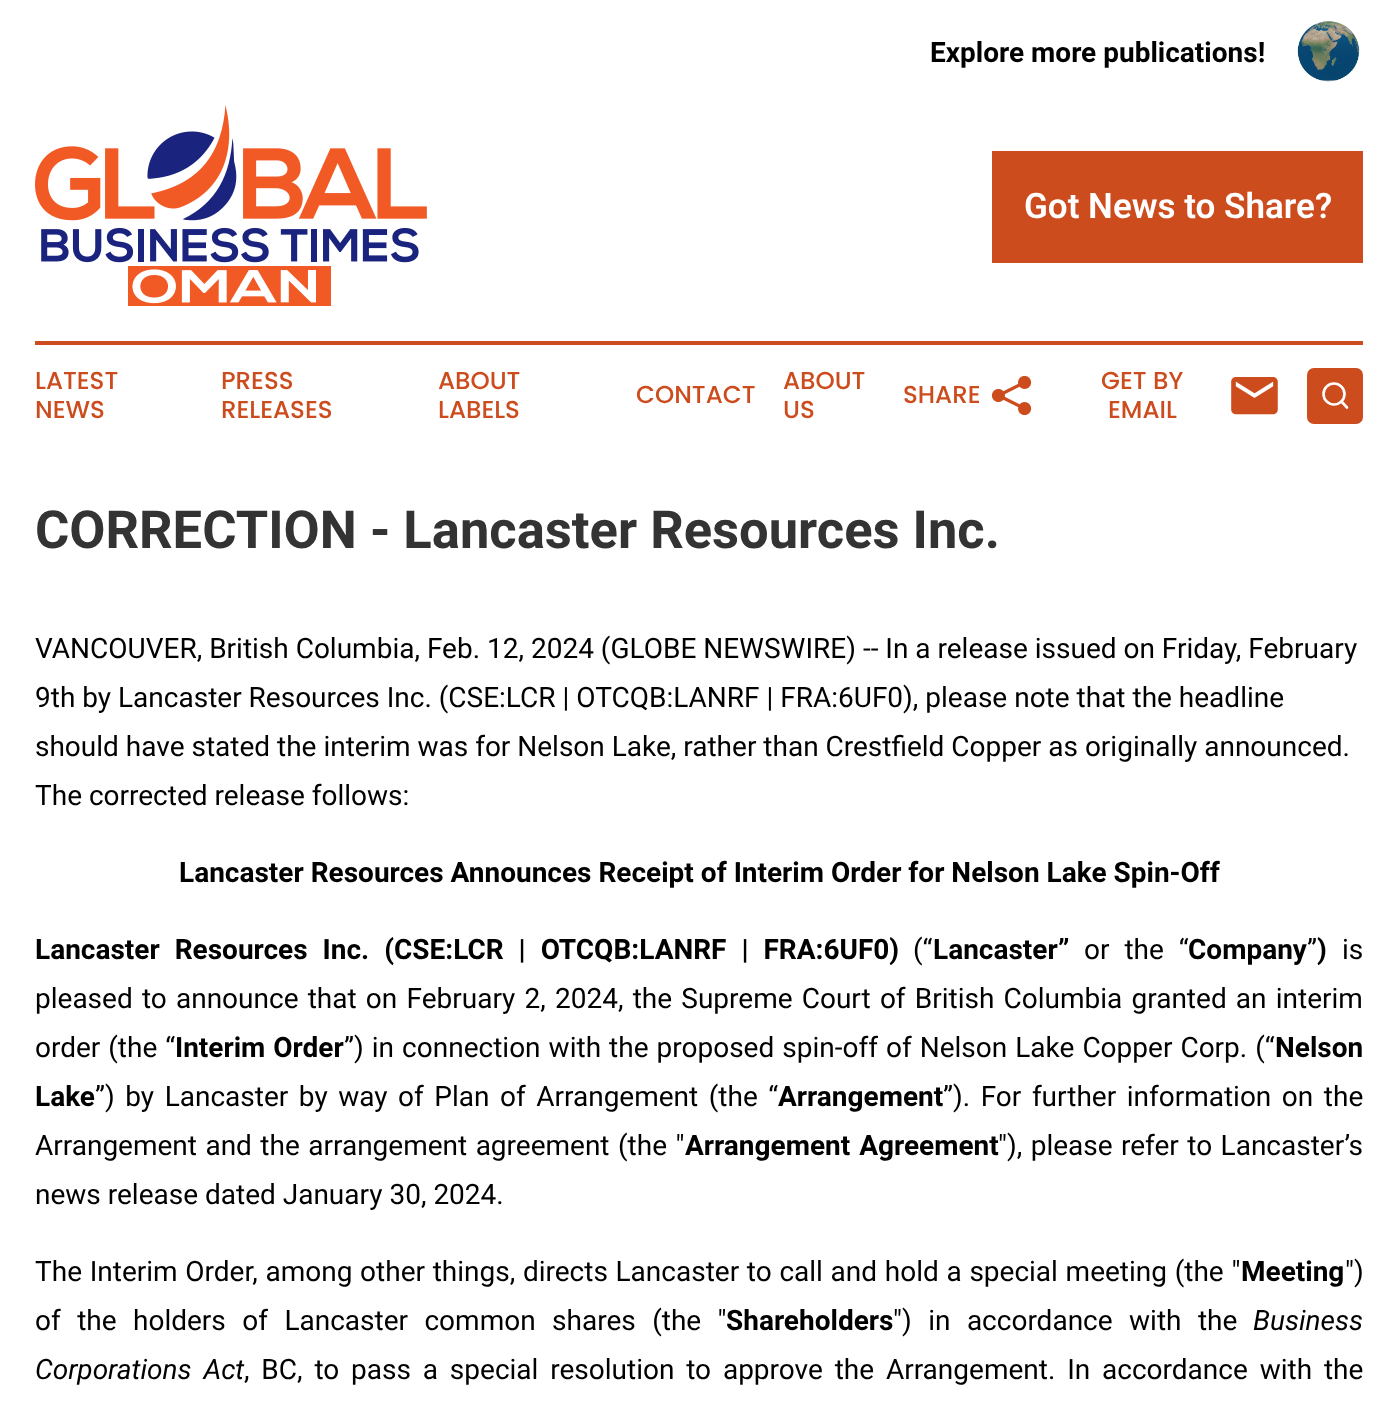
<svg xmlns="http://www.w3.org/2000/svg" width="1398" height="1404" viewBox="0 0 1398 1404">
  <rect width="100%" height="100%" fill="#ffffff"/>
  <text x="930" y="62" font-family="Roboto" font-size="28" font-weight="bold" fill="#000000">Explore more publications!</text>
  <image x="1297" y="21" width="63" height="61" href="img1.png"/>
  <image x="35" y="105" width="392" height="201" href="img2.png"/>
  <rect x="992" y="151" width="371" height="112" fill="#cc4c1e"/>
  <text x="1024" y="218" font-family="Roboto" font-size="35" font-weight="600" fill="#ffffff">Got News to Share?</text>
  <rect x="35" y="341" width="1328" height="4" fill="#cc4c1e"/>
  <text x="35" y="389" font-family="Poppins" font-size="24.5" font-weight="500" fill="#cc4c1e">LATEST</text>
  <text x="35" y="418" font-family="Poppins" font-size="24.5" font-weight="500" fill="#cc4c1e">NEWS</text>
  <text x="221" y="389" font-family="Poppins" font-size="24.5" font-weight="500" fill="#cc4c1e">PRESS</text>
  <text x="221" y="418" font-family="Poppins" font-size="24.5" font-weight="500" fill="#cc4c1e">RELEASES</text>
  <text x="438" y="389" font-family="Poppins" font-size="24.5" font-weight="500" fill="#cc4c1e">ABOUT</text>
  <text x="438" y="418" font-family="Poppins" font-size="24.5" font-weight="500" fill="#cc4c1e">LABELS</text>
  <text x="636" y="403" font-family="Poppins" font-size="24.5" font-weight="500" fill="#cc4c1e">CONTACT</text>
  <text x="783" y="389" font-family="Poppins" font-size="24.5" font-weight="500" fill="#cc4c1e">ABOUT</text>
  <text x="783" y="418" font-family="Poppins" font-size="24.5" font-weight="500" fill="#cc4c1e">US</text>
  <text x="903" y="403" font-family="Poppins" font-size="24.5" font-weight="500" fill="#cc4c1e">SHARE</text>
  <image x="991" y="375" width="41" height="41" href="img3.png"/>
  <text x="1101" y="389" font-family="Poppins" font-size="24.5" font-weight="500" fill="#cc4c1e">GET BY</text>
  <text x="1108" y="418" font-family="Poppins" font-size="24.5" font-weight="500" fill="#cc4c1e">EMAIL</text>
  <image x="1231" y="377" width="47" height="38" href="img4.png"/>
  <rect x="1307" y="368" width="56" height="56" rx="7" fill="#cc4c1e"/>
  <circle cx="1334" cy="394" r="10.5" fill="none" stroke="#ffffff" stroke-width="2.6"/>
  <path d="M1347 407.5L1341.5 401.5" fill="none" stroke="#ffffff" stroke-width="2.6" stroke-linecap="round" stroke-linejoin="round"/>
  <text x="35" y="548" font-family="Roboto" font-size="52.5" font-weight="bold" fill="#333333">CORRECTION - Lancaster Resources Inc.</text>
  <text x="35" y="658" font-family="Roboto" font-size="28" fill="#000000">VANCOUVER, British Columbia, Feb.</text>
  <text x="487" y="658" font-family="Roboto" font-size="28" fill="#000000">12, 2024 (GLOBE NEWSWIRE) -- In a release issued on Friday, February</text>
  <text x="35" y="707" font-family="Roboto" font-size="28" fill="#000000">9th by Lancaster Resources Inc. (CSE:LCR | OTCQB:LANRF | FRA:6UF0), please note that the headline</text>
  <text x="35" y="756" font-family="Roboto" font-size="28" fill="#000000">should have stated the interim was for Nelson Lake, rather than Crestfield Copper as originally announced.</text>
  <text x="35" y="805" font-family="Roboto" font-size="28" fill="#000000">The corrected release follows:</text>
  <text x="179" y="882" font-family="Roboto" font-size="28" font-weight="bold" fill="#000000">Lancaster Resources Announces Receipt of Interim Order for Nelson Lake Spin-Off</text>
  <text x="35" y="959" word-spacing="8" font-family="Roboto" font-size="28" font-weight="bold" fill="#000000">Lancaster Resources Inc. (CSE:LCR | OTCQB:LANRF | FRA:6UF0)</text>
  <text x="913" y="959" font-family="Roboto" font-size="28" fill="#000000">(“</text>
  <text x="933" y="959" font-family="Roboto" font-size="28" font-weight="bold" fill="#000000">Lancaster”</text>
  <text x="1084" y="959" word-spacing="8" font-family="Roboto" font-size="28" fill="#000000">or the “</text>
  <text x="1188" y="959" font-family="Roboto" font-size="28" font-weight="bold" fill="#000000">Company</text>
  <text x="1307" y="959" font-family="Roboto" font-size="28" fill="#000000">”</text>
  <text x="1317" y="959" font-family="Roboto" font-size="28" font-weight="bold" fill="#000000">)</text>
  <text x="1342" y="959" font-family="Roboto" font-size="28" fill="#000000">is</text>
  <text x="35" y="1008" word-spacing="2.25" font-family="Roboto" font-size="28" fill="#000000">pleased to announce that on February 2, 2024, the Supreme Court of British Columbia granted an interim</text>
  <text x="35" y="1057" word-spacing="1" font-family="Roboto" font-size="28" fill="#000000">order (the “</text>
  <text x="175" y="1057" word-spacing="1" font-family="Roboto" font-size="28" font-weight="bold" fill="#000000">Interim Order</text>
  <text x="344" y="1057" word-spacing="1.1" font-family="Roboto" font-size="28" fill="#000000">”) in connection with the proposed spin-off of Nelson Lake Copper Corp. (“</text>
  <text x="1275" y="1057" font-family="Roboto" font-size="28" font-weight="bold" fill="#000000">Nelson</text>
  <text x="35" y="1106" font-family="Roboto" font-size="28" font-weight="bold" fill="#000000">Lake</text>
  <text x="95" y="1106" word-spacing="3.6" font-family="Roboto" font-size="28" fill="#000000">”) by Lancaster by way of Plan of Arrangement (the “</text>
  <text x="778" y="1106" font-family="Roboto" font-size="28" font-weight="bold" fill="#000000">Arrangement</text>
  <text x="943" y="1106" word-spacing="3.6" font-family="Roboto" font-size="28" fill="#000000">”). For further information on the</text>
  <text x="35" y="1155" word-spacing="1.5" font-family="Roboto" font-size="28" fill="#000000">Arrangement and the arrangement agreement (the "</text>
  <text x="685" y="1155" word-spacing="2" font-family="Roboto" font-size="28" font-weight="bold" fill="#000000">Arrangement Agreement</text>
  <text x="998" y="1155" word-spacing="1.5" font-family="Roboto" font-size="28" fill="#000000">"), please refer to Lancaster’s</text>
  <text x="35" y="1204" font-family="Roboto" font-size="28" fill="#000000">news release dated January 30, 2024.</text>
  <text x="35" y="1281" word-spacing="0.75" font-family="Roboto" font-size="28" fill="#000000">The Interim Order, among other things, directs Lancaster to call and hold a special meeting (the "</text>
  <text x="1241" y="1281" font-family="Roboto" font-size="28" font-weight="bold" fill="#000000">Meeting</text>
  <text x="1345" y="1281" font-family="Roboto" font-size="28" fill="#000000">")</text>
  <text x="35" y="1330" word-spacing="9.5" font-family="Roboto" font-size="28" fill="#000000">of the holders of Lancaster common shares (the "</text>
  <text x="726" y="1330" font-family="Roboto" font-size="28" font-weight="bold" fill="#000000">Shareholders</text>
  <text x="893" y="1330" word-spacing="9.5" font-family="Roboto" font-size="28" fill="#000000">") in accordance with the</text>
  <text x="1253" y="1330" font-family="Roboto" font-size="28" font-style="italic" fill="#000000">Business</text>
  <text x="35" y="1379" word-spacing="5" font-family="Roboto" font-size="28" font-style="italic" fill="#000000">Corporations Act</text>
  <text x="244" y="1379" word-spacing="4.9" font-family="Roboto" font-size="28" fill="#000000">, BC, to pass a special resolution to approve the Arrangement. In accordance with the</text>
</svg>
